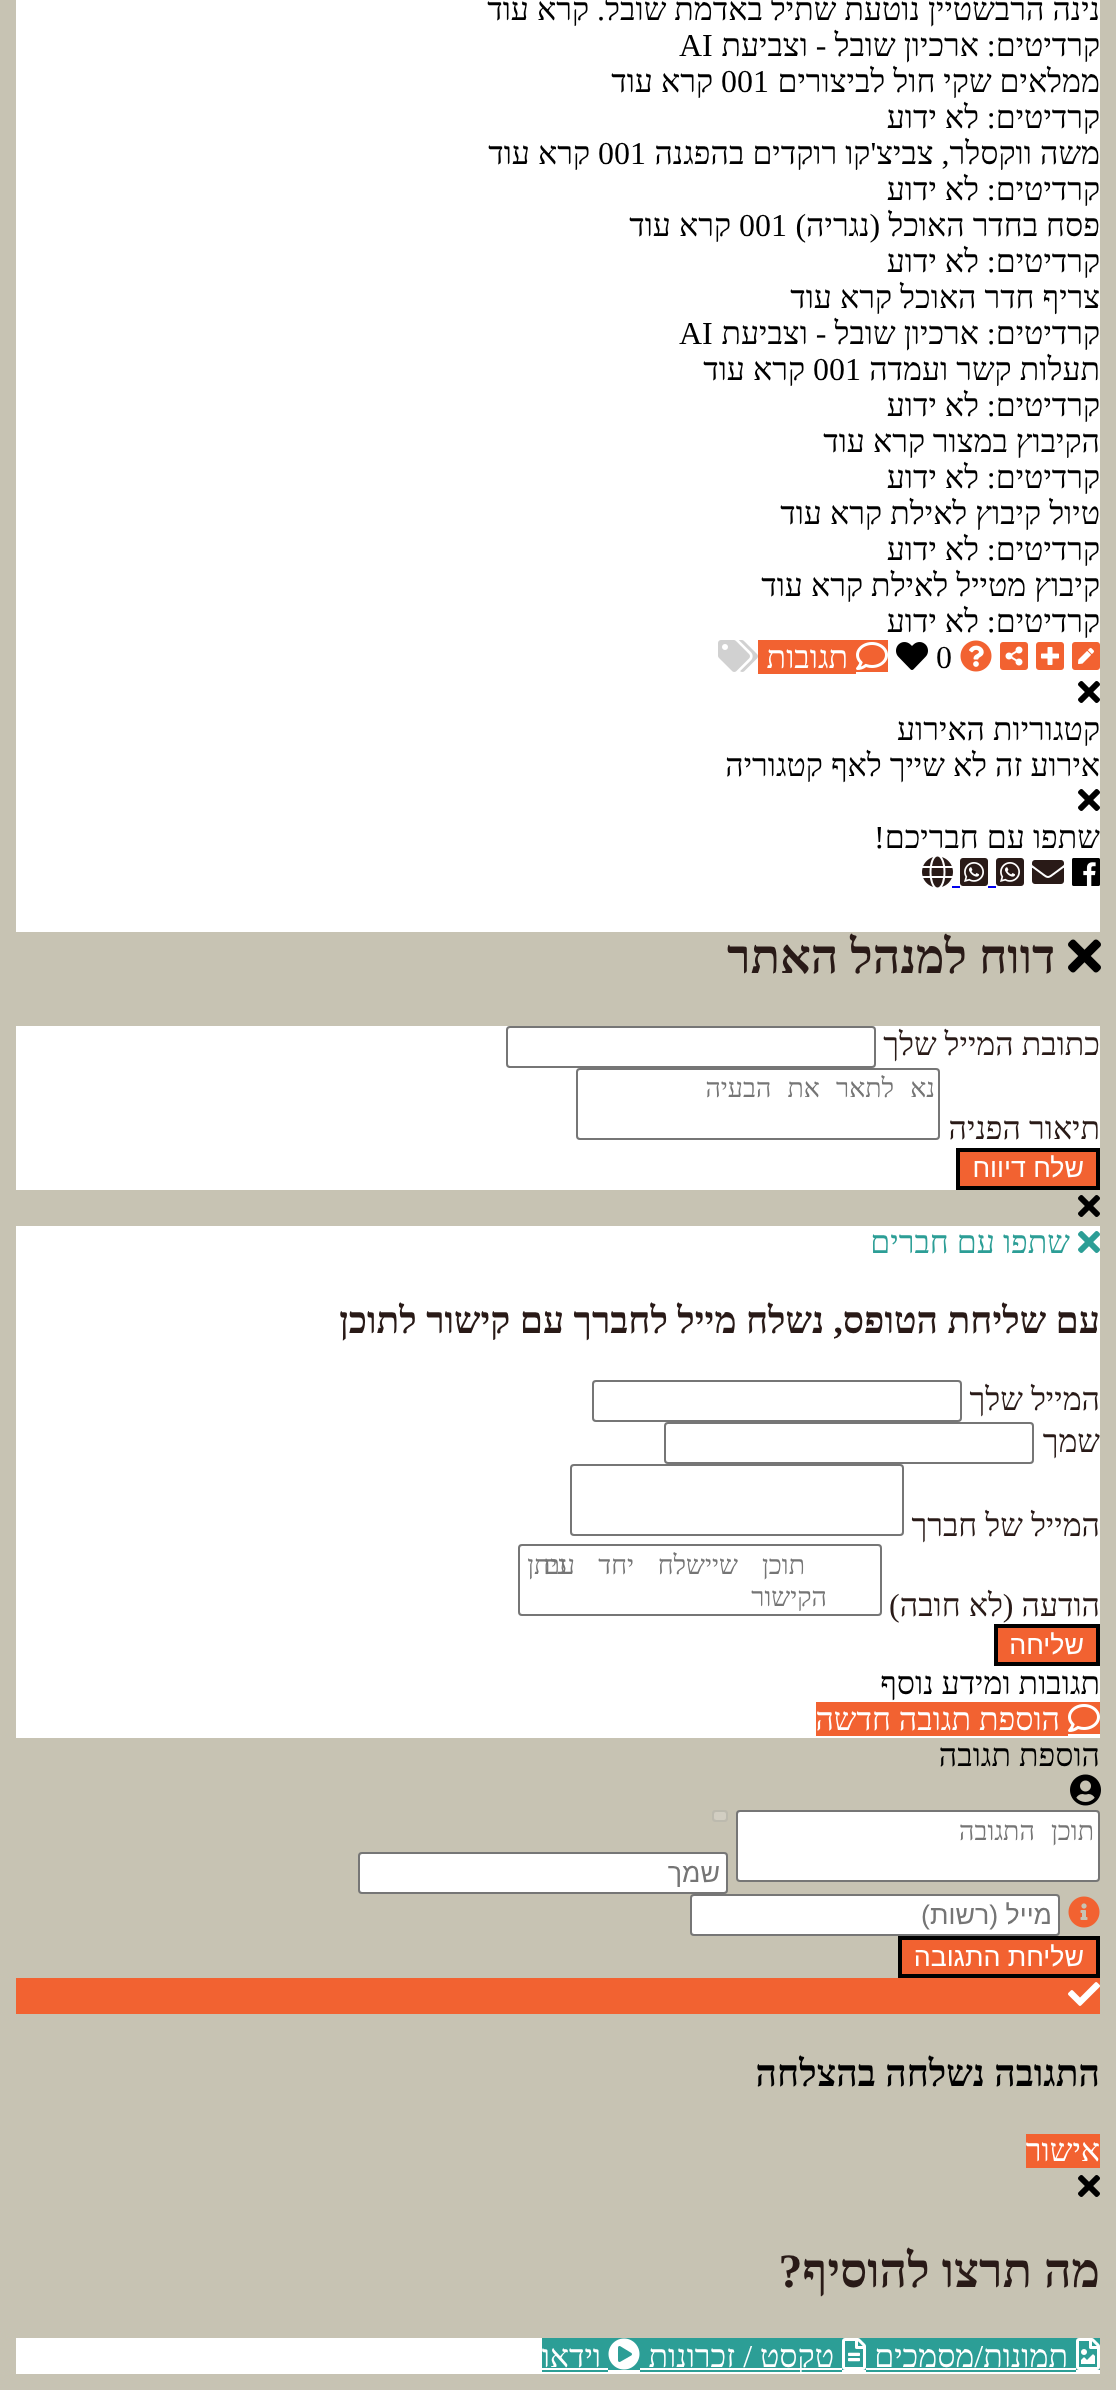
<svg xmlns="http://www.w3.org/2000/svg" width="1116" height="2390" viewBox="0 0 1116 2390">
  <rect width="100%" height="100%" fill="#c7c3b3"/>
  <rect x="16" y="0" width="1084" height="932" fill="#ffffff"/>
  <text x="1100" y="20" font-family="Liberation Serif" font-size="32" direction="rtl" fill="#000000">נינה הרבשטיין נוטעת שתיל באדמת שובל.</text>
  <text x="589" y="20" font-family="Liberation Serif" font-size="32" direction="rtl" fill="#000000">קרא עוד</text>
  <text x="1100" y="56" font-family="Liberation Serif" font-size="32" direction="rtl" fill="#000000">קרדיטים:</text>
  <text x="979" y="56" font-family="Liberation Serif" font-size="32" direction="rtl" fill="#000000">ארכיון שובל - וצביעת</text>
  <text x="679" y="56" font-family="Liberation Serif" font-size="32" fill="#000000">AI</text>
  <text x="1100" y="92" font-family="Liberation Serif" font-size="32" direction="rtl" fill="#000000">ממלאים שקי חול לביצורים</text>
  <text x="721" y="92" font-family="Liberation Serif" font-size="32" fill="#000000">001</text>
  <text x="713" y="92" font-family="Liberation Serif" font-size="32" direction="rtl" fill="#000000">קרא עוד</text>
  <text x="1100" y="128" font-family="Liberation Serif" font-size="32" direction="rtl" fill="#000000">קרדיטים:</text>
  <text x="979" y="128" font-family="Liberation Serif" font-size="32" direction="rtl" fill="#000000">לא ידוע</text>
  <text x="1100" y="164" font-family="Liberation Serif" font-size="32" direction="rtl" fill="#000000">משה ווקסלר, צביצ'קו רוקדים בהפגנה</text>
  <text x="598" y="164" font-family="Liberation Serif" font-size="32" fill="#000000">001</text>
  <text x="590" y="164" font-family="Liberation Serif" font-size="32" direction="rtl" fill="#000000">קרא עוד</text>
  <text x="1100" y="200" font-family="Liberation Serif" font-size="32" direction="rtl" fill="#000000">קרדיטים:</text>
  <text x="979" y="200" font-family="Liberation Serif" font-size="32" direction="rtl" fill="#000000">לא ידוע</text>
  <text x="1100" y="236" font-family="Liberation Serif" font-size="32" direction="rtl" fill="#000000">פסח בחדר האוכל (נגריה)</text>
  <text x="739" y="236" font-family="Liberation Serif" font-size="32" fill="#000000">001</text>
  <text x="731" y="236" font-family="Liberation Serif" font-size="32" direction="rtl" fill="#000000">קרא עוד</text>
  <text x="1100" y="272" font-family="Liberation Serif" font-size="32" direction="rtl" fill="#000000">קרדיטים:</text>
  <text x="979" y="272" font-family="Liberation Serif" font-size="32" direction="rtl" fill="#000000">לא ידוע</text>
  <text x="1100" y="308" font-family="Liberation Serif" font-size="32" direction="rtl" fill="#000000">צריף חדר האוכל</text>
  <text x="892" y="308" font-family="Liberation Serif" font-size="32" direction="rtl" fill="#000000">קרא עוד</text>
  <text x="1100" y="344" font-family="Liberation Serif" font-size="32" direction="rtl" fill="#000000">קרדיטים:</text>
  <text x="979" y="344" font-family="Liberation Serif" font-size="32" direction="rtl" fill="#000000">ארכיון שובל - וצביעת</text>
  <text x="679" y="344" font-family="Liberation Serif" font-size="32" fill="#000000">AI</text>
  <text x="1100" y="380" font-family="Liberation Serif" font-size="32" direction="rtl" fill="#000000">תעלות קשר ועמדה</text>
  <text x="813" y="380" font-family="Liberation Serif" font-size="32" fill="#000000">001</text>
  <text x="805" y="380" font-family="Liberation Serif" font-size="32" direction="rtl" fill="#000000">קרא עוד</text>
  <text x="1100" y="416" font-family="Liberation Serif" font-size="32" direction="rtl" fill="#000000">קרדיטים:</text>
  <text x="979" y="416" font-family="Liberation Serif" font-size="32" direction="rtl" fill="#000000">לא ידוע</text>
  <text x="1100" y="452" font-family="Liberation Serif" font-size="32" direction="rtl" fill="#000000">הקיבוץ במצור</text>
  <text x="925" y="452" font-family="Liberation Serif" font-size="32" direction="rtl" fill="#000000">קרא עוד</text>
  <text x="1100" y="488" font-family="Liberation Serif" font-size="32" direction="rtl" fill="#000000">קרדיטים:</text>
  <text x="979" y="488" font-family="Liberation Serif" font-size="32" direction="rtl" fill="#000000">לא ידוע</text>
  <text x="1100" y="524" font-family="Liberation Serif" font-size="32" direction="rtl" fill="#000000">טיול קיבוץ לאילת</text>
  <text x="882" y="524" font-family="Liberation Serif" font-size="32" direction="rtl" fill="#000000">קרא עוד</text>
  <text x="1100" y="560" font-family="Liberation Serif" font-size="32" direction="rtl" fill="#000000">קרדיטים:</text>
  <text x="979" y="560" font-family="Liberation Serif" font-size="32" direction="rtl" fill="#000000">לא ידוע</text>
  <text x="1100" y="596" font-family="Liberation Serif" font-size="32" direction="rtl" fill="#000000">קיבוץ מטייל לאילת</text>
  <text x="863" y="596" font-family="Liberation Serif" font-size="32" direction="rtl" fill="#000000">קרא עוד</text>
  <text x="1100" y="632" font-family="Liberation Serif" font-size="32" direction="rtl" fill="#000000">קרדיטים:</text>
  <text x="979" y="632" font-family="Liberation Serif" font-size="32" direction="rtl" fill="#000000">לא ידוע</text>
  <image x="1072" y="642" width="28" height="28" href="img1.png"/>
  <image x="1036" y="642" width="28" height="28" href="img2.png"/>
  <image x="1000" y="642" width="28" height="28" href="img3.png"/>
  <image x="960" y="640" width="32" height="32" href="img4.png"/>
  <text x="936" y="668" font-family="Liberation Serif" font-size="32" fill="#000000">0</text>
  <image x="896" y="642" width="32" height="28" href="img5.png"/>
  <rect x="856" y="640" width="32" height="32" fill="#f26231"/>
  <rect x="758" y="640" width="98" height="34" fill="#f26231"/>
  <image x="856" y="642" width="32" height="28" href="img6.png"/>
  <text x="848" y="668" font-family="Liberation Serif" font-size="32" direction="rtl" fill="#ffffff">תגובות</text>
  <image x="718" y="640" width="40" height="32" href="img7.png"/>
  <image x="1078" y="681" width="22" height="22" href="img8.png"/>
  <text x="1100" y="740" font-family="Liberation Serif" font-size="32" direction="rtl" fill="#000000">קטגוריות האירוע</text>
  <text x="1100" y="776" font-family="Liberation Serif" font-size="32" direction="rtl" fill="#000000">אירוע זה לא שייך לאף קטגוריה</text>
  <image x="1078" y="789" width="22" height="22" href="img8.png"/>
  <text x="1100" y="848" font-family="Liberation Serif" font-size="32" direction="rtl" fill="#000000">שתפו עם חבריכם!</text>
  <image x="1072" y="858" width="28" height="28" href="img9.png"/>
  <image x="1032" y="860" width="32" height="24" href="img10.png"/>
  <image x="996" y="858" width="28" height="28" href="img11.png"/>
  <rect x="988" y="886" width="8" height="2" fill="#0000ee"/>
  <image x="960" y="858" width="28" height="28" href="img11.png"/>
  <rect x="952" y="886" width="8" height="2" fill="#0000ee"/>
  <image x="922" y="856" width="31" height="32" href="img12.png"/>
  <image x="1068" y="939" width="33" height="34" href="img13.png"/>
  <text x="1055" y="973" font-family="Liberation Serif" font-size="48" font-weight="bold" direction="rtl" fill="#291a17">דווח למנהל האתר</text>
  <rect x="16" y="1026" width="1084" height="164" fill="#ffffff"/>
  <text x="1100" y="1055" font-family="Liberation Serif" font-size="32" direction="rtl" fill="#291a17">כתובת המייל שלך</text>
  <rect x="507" y="1027" width="368" height="40" rx="3" fill="none" stroke="#767676" stroke-width="2"/>
  <rect x="577" y="1069" width="362" height="70" rx="3" fill="none" stroke="#767676" stroke-width="2"/>
  <text x="935" y="1097" word-spacing="9.5" font-family="Liberation Serif" font-size="26.75" direction="rtl" fill="#757575">נא לתאר את הבעיה</text>
  <text x="1100" y="1139" font-family="Liberation Serif" font-size="32" direction="rtl" fill="#291a17">תיאור הפניה</text>
  <rect x="958" y="1150" width="140" height="38" fill="#f26231" stroke="#000000" stroke-width="4"/>
  <text x="1084" y="1177" font-family="Liberation Sans" font-size="26.75" direction="rtl" fill="#ffffff">שלח דיווח</text>
  <image x="1078" y="1195" width="22" height="22" href="img14.png"/>
  <rect x="16" y="1226" width="1084" height="512" fill="#ffffff"/>
  <image x="1078" y="1231" width="22" height="22" href="img15.png"/>
  <text x="1070" y="1253" font-family="Liberation Serif" font-size="32" direction="rtl" fill="#2c9e96">שתפו עם חברים</text>
  <text x="1100" y="1333" font-family="Liberation Serif" font-size="37.4" font-weight="bold" direction="rtl" fill="#291a17">עם שליחת הטופס, נשלח מייל לחברך עם קישור לתוכן</text>
  <text x="1100" y="1410" font-family="Liberation Serif" font-size="32" direction="rtl" fill="#291a17">המייל שלך</text>
  <rect x="593" y="1381" width="368" height="40" rx="3" fill="none" stroke="#767676" stroke-width="2"/>
  <text x="1100" y="1452" font-family="Liberation Serif" font-size="32" direction="rtl" fill="#291a17">שמך</text>
  <rect x="665" y="1423" width="368" height="40" rx="3" fill="none" stroke="#767676" stroke-width="2"/>
  <text x="1100" y="1536" font-family="Liberation Serif" font-size="32" direction="rtl" fill="#291a17">המייל של חברך</text>
  <rect x="571" y="1465" width="332" height="70" rx="3" fill="none" stroke="#767676" stroke-width="2"/>
  <text x="1100" y="1616" font-family="Liberation Serif" font-size="32" direction="rtl" fill="#291a17">הודעה (לא חובה)</text>
  <rect x="519" y="1545" width="362" height="70" rx="3" fill="none" stroke="#767676" stroke-width="2"/>
  <text x="738" y="1574" font-family="Liberation Serif" font-size="26.75" direction="rtl" fill="#757575">שיישלח</text>
  <text x="566" y="1574" font-family="Liberation Serif" font-size="26.75" direction="rtl" fill="#757575">ניתן</text>
  <text x="805" y="1574" font-family="Liberation Serif" font-size="26.75" direction="rtl" fill="#757575">תוכן</text>
  <text x="634" y="1574" font-family="Liberation Serif" font-size="26.75" direction="rtl" fill="#757575">יחד</text>
  <text x="575" y="1574" font-family="Liberation Serif" font-size="26.75" direction="rtl" fill="#757575">עם</text>
  <text x="827" y="1606" font-family="Liberation Serif" font-size="26.75" direction="rtl" fill="#757575">הקישור</text>
  <rect x="996" y="1626" width="102" height="38" fill="#f26231" stroke="#000000" stroke-width="4"/>
  <text x="1084" y="1654" font-family="Liberation Sans" font-size="26.75" direction="rtl" fill="#ffffff">שליחה</text>
  <text x="1100" y="1694" font-family="Liberation Serif" font-size="32" direction="rtl" fill="#000000">תגובות ומידע נוסף</text>
  <rect x="1068" y="1702" width="32" height="32" fill="#f26231"/>
  <rect x="816" y="1702" width="252" height="34" fill="#f26231"/>
  <image x="1068" y="1704" width="32" height="28" href="img6.png"/>
  <text x="1060" y="1730" font-family="Liberation Serif" font-size="32" direction="rtl" fill="#ffffff">הוספת תגובה חדשה</text>
  <text x="1100" y="1766" font-family="Liberation Serif" font-size="32" direction="rtl" fill="#000000">הוספת תגובה</text>
  <image x="1070" y="1774" width="31" height="32" href="img16.png"/>
  <rect x="713" y="1811" width="14" height="10" rx="3" fill="#cdc9bb" stroke="#bfbbad" stroke-width="2"/>
  <rect x="712" y="1810" width="16" height="12" rx="4" fill="#ffffff" fill-opacity="0.1"/>
  <rect x="713" y="1811" width="14" height="10" rx="3" fill="none" stroke="#767676" stroke-opacity="0.1" stroke-width="2"/>
  <rect x="737" y="1811" width="362" height="70" rx="3" fill="#ffffff" stroke="#767676" stroke-width="2"/>
  <text x="1094" y="1840" word-spacing="9.5" font-family="Liberation Serif" font-size="26.75" direction="rtl" fill="#757575">תוכן התגובה</text>
  <rect x="359" y="1853" width="368" height="40" rx="3" fill="#ffffff" stroke="#767676" stroke-width="2"/>
  <text x="720" y="1882" font-family="Liberation Sans" font-size="26.75" direction="rtl" fill="#757575">שמך</text>
  <image x="1068" y="1896" width="32" height="32" href="img17.png"/>
  <rect x="691" y="1895" width="368" height="40" rx="3" fill="#ffffff" stroke="#767676" stroke-width="2"/>
  <text x="1052" y="1924" font-family="Liberation Sans" font-size="26.75" direction="rtl" fill="#757575">מייל (רשות)</text>
  <rect x="900" y="1938" width="198" height="38" fill="#f26231" stroke="#000000" stroke-width="4"/>
  <text x="1084" y="1966" font-family="Liberation Sans" font-size="26.75" direction="rtl" fill="#ffffff">שליחת התגובה</text>
  <rect x="16" y="1978" width="1084" height="36" fill="#f26231"/>
  <image x="1068" y="1982" width="32" height="24" href="img18.png"/>
  <text x="1100" y="2086" font-family="Liberation Serif" font-size="37.4" font-weight="bold" direction="rtl" fill="#000000">התגובה נשלחה בהצלחה</text>
  <rect x="1026" y="2134" width="74" height="34" fill="#f26231"/>
  <text x="1100" y="2161" font-family="Liberation Serif" font-size="32" direction="rtl" fill="#ffffff">אישור</text>
  <image x="1078" y="2175" width="22" height="22" href="img14.png"/>
  <text x="1100" y="2287" font-family="Liberation Serif" font-size="48" font-weight="bold" direction="rtl" fill="#291a17">מה תרצו להוסיף?</text>
  <rect x="16" y="2338" width="1084" height="36" fill="#ffffff"/>
  <rect x="1076" y="2338" width="24" height="32" fill="#2c9e96"/>
  <rect x="866" y="2338" width="210" height="34" fill="#2c9e96"/>
  <image x="1076" y="2338" width="24" height="32" href="img19.png"/>
  <text x="1068" y="2367" font-family="Liberation Serif" font-size="32" direction="rtl" fill="#ffffff">תמונות/מסמכים</text>
  <rect x="866" y="2368" width="210" height="2" fill="#ffffff"/>
  <rect x="842" y="2338" width="24" height="32" fill="#2c9e96"/>
  <rect x="640" y="2338" width="202" height="34" fill="#2c9e96"/>
  <image x="842" y="2338" width="24" height="32" href="img20.png"/>
  <rect x="640" y="2368" width="202" height="2" fill="#ffffff"/>
  <text x="834" y="2367" font-family="Liberation Serif" font-size="32" direction="rtl" fill="#ffffff">טקסט / זכרונות</text>
  <rect x="608" y="2338" width="32" height="32" fill="#2c9e96"/>
  <rect x="542" y="2338" width="66" height="34" fill="#2c9e96"/>
  <image x="608" y="2338" width="32" height="32" href="img21.png"/>
  <text x="601" y="2367" font-family="Liberation Serif" font-size="32" direction="rtl" fill="#ffffff">וידאו</text>
  <rect x="542" y="2368" width="66" height="2" fill="#ffffff"/>
</svg>
